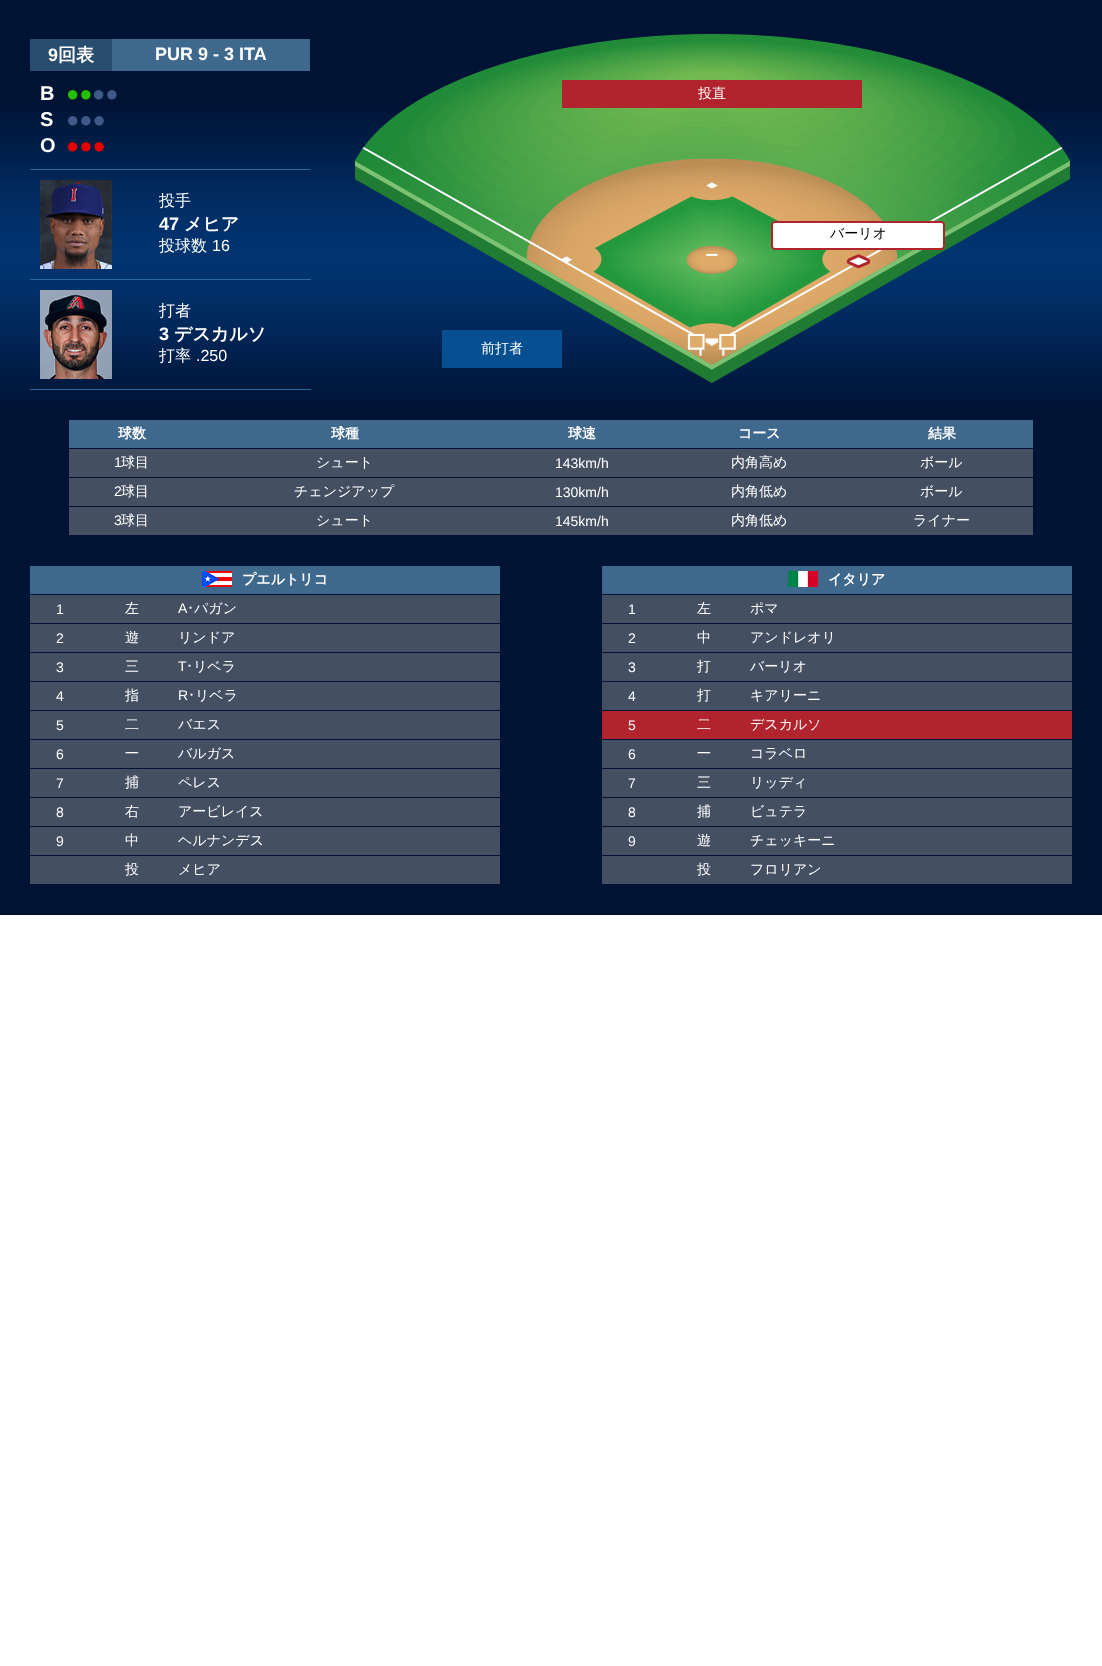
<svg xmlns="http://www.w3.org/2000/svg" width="1102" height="1666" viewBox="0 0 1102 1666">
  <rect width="100%" height="100%" fill="#ffffff"/>
  <rect x="0" y="0" width="1102" height="915" fill="#001334"/>
  <image x="0" y="111" width="1102" height="290" href="img1.png"/>
  <image x="355" y="34" width="715" height="349" href="img2.png"/>
  <rect x="30" y="39" width="82" height="32" fill="#294d6e"/>
  <text x="48" y="61" font-family="Liberation Sans" font-size="18" font-weight="bold" fill="#ffffff">9</text>
  <text x="58" y="61" font-family="WenQuanYi Zen Hei" font-size="18" font-weight="bold" fill="#ffffff">回表</text>
  <rect x="112" y="39" width="198" height="32" fill="#3f688d"/>
  <text x="155" y="60" font-family="Liberation Sans" font-size="18" font-weight="bold" fill="#ffffff">PUR 9 - 3 ITA</text>
  <text x="40" y="100" font-family="Liberation Sans" font-size="20" font-weight="bold" fill="#ffffff">B</text>
  <text x="66" y="101" font-family="Liberation Sans" font-size="22" fill="#24bf00">●●</text>
  <text x="92" y="101" font-family="Liberation Sans" font-size="22" fill="#3f5a89">●●</text>
  <text x="40" y="126" font-family="Liberation Sans" font-size="20" font-weight="bold" fill="#ffffff">S</text>
  <text x="66" y="127" font-family="Liberation Sans" font-size="22" fill="#3f5a89">●●●</text>
  <text x="40" y="152" font-family="Liberation Sans" font-size="20" font-weight="bold" fill="#ffffff">O</text>
  <text x="66" y="153" font-family="Liberation Sans" font-size="22" fill="#e60000">●●●</text>
  <rect x="30" y="169" width="280" height="1" fill="#2d6aa0"/>
  <image x="40" y="180" width="72" height="89" href="img3.png"/>
  <rect x="30" y="279" width="281" height="1" fill="#2d6aa0"/>
  <text x="159" y="206" font-family="WenQuanYi Zen Hei" font-size="16" font-weight="500" fill="#ffffff">投手</text>
  <text x="159" y="230" font-family="Liberation Sans" font-size="18" font-weight="bold" fill="#ffffff">47</text>
  <text x="184" y="230" font-family="WenQuanYi Zen Hei" font-size="18" font-weight="bold" fill="#ffffff">メヒア</text>
  <text x="159" y="251" font-family="WenQuanYi Zen Hei" font-size="16" font-weight="500" fill="#ffffff">投球数</text>
  <text x="212" y="251" font-family="Liberation Sans" font-size="16" fill="#ffffff">16</text>
  <image x="40" y="290" width="72" height="89" href="img4.png"/>
  <rect x="30" y="389" width="281" height="1" fill="#2d6aa0"/>
  <text x="159" y="316" font-family="WenQuanYi Zen Hei" font-size="16" font-weight="500" fill="#ffffff">打者</text>
  <text x="159" y="340" font-family="Liberation Sans" font-size="18" font-weight="bold" fill="#ffffff">3</text>
  <text x="174" y="340" font-family="WenQuanYi Zen Hei" font-size="18" font-weight="bold" fill="#ffffff">デスカルソ</text>
  <text x="159" y="361" font-family="WenQuanYi Zen Hei" font-size="16" font-weight="500" fill="#ffffff">打率</text>
  <text x="196" y="361" font-family="Liberation Sans" font-size="16" fill="#ffffff">.250</text>
  <rect x="562" y="80" width="300" height="28" fill="#b1232d"/>
  <text x="698" y="98" font-family="WenQuanYi Zen Hei" font-size="14" font-weight="500" fill="#ffffff">投直</text>
  <image x="771" y="221" width="174" height="48" href="img5.png"/>
  <text x="830" y="238" font-family="WenQuanYi Zen Hei" font-size="14" font-weight="500" fill="#000000">バーリオ</text>
  <rect x="442" y="330" width="120" height="38" fill="#064f90"/>
  <text x="481" y="353" font-family="WenQuanYi Zen Hei" font-size="14" font-weight="500" fill="#ffffff">前打者</text>
  <rect x="69" y="420" width="964" height="28" fill="#3f688d"/>
  <text x="118" y="438" font-family="WenQuanYi Zen Hei" font-size="14" font-weight="bold" fill="#ffffff">球数</text>
  <text x="331" y="438" font-family="WenQuanYi Zen Hei" font-size="14" font-weight="bold" fill="#ffffff">球種</text>
  <text x="568" y="438" font-family="WenQuanYi Zen Hei" font-size="14" font-weight="bold" fill="#ffffff">球速</text>
  <text x="738" y="438" font-family="WenQuanYi Zen Hei" font-size="14" font-weight="bold" fill="#ffffff">コース</text>
  <text x="928" y="438" font-family="WenQuanYi Zen Hei" font-size="14" font-weight="bold" fill="#ffffff">結果</text>
  <rect x="69" y="449" width="964" height="28" fill="#444f62"/>
  <text x="114" y="467" font-family="Liberation Sans" font-size="14" fill="#ffffff">1</text>
  <text x="121" y="467" font-family="WenQuanYi Zen Hei" font-size="14" font-weight="500" fill="#ffffff">球目</text>
  <text x="316" y="467" font-family="WenQuanYi Zen Hei" font-size="14" font-weight="500" fill="#ffffff">シュート</text>
  <text x="555" y="468" font-family="Liberation Sans" font-size="14" fill="#ffffff">143km/h</text>
  <text x="731" y="467" font-family="WenQuanYi Zen Hei" font-size="14" font-weight="500" fill="#ffffff">内角高め</text>
  <text x="920" y="467" font-family="WenQuanYi Zen Hei" font-size="14" font-weight="500" fill="#ffffff">ボール</text>
  <rect x="69" y="478" width="964" height="28" fill="#444f62"/>
  <text x="114" y="496" font-family="Liberation Sans" font-size="14" fill="#ffffff">2</text>
  <text x="121" y="496" font-family="WenQuanYi Zen Hei" font-size="14" font-weight="500" fill="#ffffff">球目</text>
  <text x="294" y="496" font-family="WenQuanYi Zen Hei" font-size="14" font-weight="500" fill="#ffffff">チェンジアップ</text>
  <text x="555" y="497" font-family="Liberation Sans" font-size="14" fill="#ffffff">130km/h</text>
  <text x="731" y="496" font-family="WenQuanYi Zen Hei" font-size="14" font-weight="500" fill="#ffffff">内角低め</text>
  <text x="920" y="496" font-family="WenQuanYi Zen Hei" font-size="14" font-weight="500" fill="#ffffff">ボール</text>
  <rect x="69" y="507" width="964" height="28" fill="#444f62"/>
  <text x="114" y="525" font-family="Liberation Sans" font-size="14" fill="#ffffff">3</text>
  <text x="121" y="525" font-family="WenQuanYi Zen Hei" font-size="14" font-weight="500" fill="#ffffff">球目</text>
  <text x="316" y="525" font-family="WenQuanYi Zen Hei" font-size="14" font-weight="500" fill="#ffffff">シュート</text>
  <text x="555" y="526" font-family="Liberation Sans" font-size="14" fill="#ffffff">145km/h</text>
  <text x="731" y="525" font-family="WenQuanYi Zen Hei" font-size="14" font-weight="500" fill="#ffffff">内角低め</text>
  <text x="913" y="525" font-family="WenQuanYi Zen Hei" font-size="14" font-weight="500" fill="#ffffff">ライナー</text>
  <rect x="30" y="566" width="470" height="28" fill="#3f688d"/>
  <image x="202" y="571" width="30" height="16" href="img6.png"/>
  <text x="242" y="584" font-family="WenQuanYi Zen Hei" font-size="14" font-weight="bold" fill="#ffffff">プエルトリコ</text>
  <rect x="30" y="595" width="470" height="28" fill="#444f62"/>
  <text x="56" y="614" font-family="Liberation Sans" font-size="14" fill="#ffffff">1</text>
  <text x="125" y="613" font-family="WenQuanYi Zen Hei" font-size="14" font-weight="500" fill="#ffffff">左</text>
  <text x="178" y="613" font-family="Liberation Sans" font-size="14" fill="#ffffff">A</text>
  <text x="187" y="613" font-family="IPAGothic" font-size="14" fill="#ffffff">･</text>
  <text x="194" y="613" font-family="WenQuanYi Zen Hei" font-size="14" font-weight="500" fill="#ffffff">パガン</text>
  <rect x="30" y="624" width="470" height="28" fill="#444f62"/>
  <text x="56" y="643" font-family="Liberation Sans" font-size="14" fill="#ffffff">2</text>
  <text x="125" y="642" font-family="WenQuanYi Zen Hei" font-size="14" font-weight="500" fill="#ffffff">遊</text>
  <text x="178" y="642" font-family="WenQuanYi Zen Hei" font-size="14" font-weight="500" fill="#ffffff">リンドア</text>
  <rect x="30" y="653" width="470" height="28" fill="#444f62"/>
  <text x="56" y="672" font-family="Liberation Sans" font-size="14" fill="#ffffff">3</text>
  <text x="125" y="671" font-family="WenQuanYi Zen Hei" font-size="14" font-weight="500" fill="#ffffff">三</text>
  <text x="178" y="671" font-family="Liberation Sans" font-size="14" fill="#ffffff">T</text>
  <text x="186" y="671" font-family="IPAGothic" font-size="14" fill="#ffffff">･</text>
  <text x="193" y="671" font-family="WenQuanYi Zen Hei" font-size="14" font-weight="500" fill="#ffffff">リベラ</text>
  <rect x="30" y="682" width="470" height="28" fill="#444f62"/>
  <text x="56" y="701" font-family="Liberation Sans" font-size="14" fill="#ffffff">4</text>
  <text x="125" y="700" font-family="WenQuanYi Zen Hei" font-size="14" font-weight="500" fill="#ffffff">指</text>
  <text x="178" y="700" font-family="Liberation Sans" font-size="14" fill="#ffffff">R</text>
  <text x="188" y="700" font-family="IPAGothic" font-size="14" fill="#ffffff">･</text>
  <text x="195" y="700" font-family="WenQuanYi Zen Hei" font-size="14" font-weight="500" fill="#ffffff">リベラ</text>
  <rect x="30" y="711" width="470" height="28" fill="#444f62"/>
  <text x="56" y="730" font-family="Liberation Sans" font-size="14" fill="#ffffff">5</text>
  <text x="125" y="729" font-family="WenQuanYi Zen Hei" font-size="14" font-weight="500" fill="#ffffff">二</text>
  <text x="178" y="729" font-family="WenQuanYi Zen Hei" font-size="14" font-weight="500" fill="#ffffff">バエス</text>
  <rect x="30" y="740" width="470" height="28" fill="#444f62"/>
  <text x="56" y="759" font-family="Liberation Sans" font-size="14" fill="#ffffff">6</text>
  <text x="125" y="758" font-family="WenQuanYi Zen Hei" font-size="14" font-weight="500" fill="#ffffff">一</text>
  <text x="178" y="758" font-family="WenQuanYi Zen Hei" font-size="14" font-weight="500" fill="#ffffff">バルガス</text>
  <rect x="30" y="769" width="470" height="28" fill="#444f62"/>
  <text x="56" y="788" font-family="Liberation Sans" font-size="14" fill="#ffffff">7</text>
  <text x="125" y="787" font-family="WenQuanYi Zen Hei" font-size="14" font-weight="500" fill="#ffffff">捕</text>
  <text x="178" y="787" font-family="WenQuanYi Zen Hei" font-size="14" font-weight="500" fill="#ffffff">ペレス</text>
  <rect x="30" y="798" width="470" height="28" fill="#444f62"/>
  <text x="56" y="817" font-family="Liberation Sans" font-size="14" fill="#ffffff">8</text>
  <text x="125" y="816" font-family="WenQuanYi Zen Hei" font-size="14" font-weight="500" fill="#ffffff">右</text>
  <text x="178" y="816" font-family="WenQuanYi Zen Hei" font-size="14" font-weight="500" fill="#ffffff">アービレイス</text>
  <rect x="30" y="827" width="470" height="28" fill="#444f62"/>
  <text x="56" y="846" font-family="Liberation Sans" font-size="14" fill="#ffffff">9</text>
  <text x="125" y="845" font-family="WenQuanYi Zen Hei" font-size="14" font-weight="500" fill="#ffffff">中</text>
  <text x="178" y="845" font-family="WenQuanYi Zen Hei" font-size="14" font-weight="500" fill="#ffffff">ヘルナンデス</text>
  <rect x="30" y="856" width="470" height="28" fill="#444f62"/>
  <text x="125" y="874" font-family="WenQuanYi Zen Hei" font-size="14" font-weight="500" fill="#ffffff">投</text>
  <text x="178" y="874" font-family="WenQuanYi Zen Hei" font-size="14" font-weight="500" fill="#ffffff">メヒア</text>
  <rect x="602" y="566" width="470" height="28" fill="#3f688d"/>
  <image x="788" y="571" width="30" height="16" href="img7.png"/>
  <text x="828" y="584" font-family="WenQuanYi Zen Hei" font-size="14" font-weight="bold" fill="#ffffff">イタリア</text>
  <rect x="602" y="595" width="470" height="28" fill="#444f62"/>
  <text x="628" y="614" font-family="Liberation Sans" font-size="14" fill="#ffffff">1</text>
  <text x="697" y="613" font-family="WenQuanYi Zen Hei" font-size="14" font-weight="500" fill="#ffffff">左</text>
  <text x="750" y="613" font-family="WenQuanYi Zen Hei" font-size="14" font-weight="500" fill="#ffffff">ポマ</text>
  <rect x="602" y="624" width="470" height="28" fill="#444f62"/>
  <text x="628" y="643" font-family="Liberation Sans" font-size="14" fill="#ffffff">2</text>
  <text x="697" y="642" font-family="WenQuanYi Zen Hei" font-size="14" font-weight="500" fill="#ffffff">中</text>
  <text x="750" y="642" font-family="WenQuanYi Zen Hei" font-size="14" font-weight="500" fill="#ffffff">アンドレオリ</text>
  <rect x="602" y="653" width="470" height="28" fill="#444f62"/>
  <text x="628" y="672" font-family="Liberation Sans" font-size="14" fill="#ffffff">3</text>
  <text x="697" y="671" font-family="WenQuanYi Zen Hei" font-size="14" font-weight="500" fill="#ffffff">打</text>
  <text x="750" y="671" font-family="WenQuanYi Zen Hei" font-size="14" font-weight="500" fill="#ffffff">バーリオ</text>
  <rect x="602" y="682" width="470" height="28" fill="#444f62"/>
  <text x="628" y="701" font-family="Liberation Sans" font-size="14" fill="#ffffff">4</text>
  <text x="697" y="700" font-family="WenQuanYi Zen Hei" font-size="14" font-weight="500" fill="#ffffff">打</text>
  <text x="750" y="700" font-family="WenQuanYi Zen Hei" font-size="14" font-weight="500" fill="#ffffff">キアリーニ</text>
  <rect x="602" y="711" width="470" height="28" fill="#b1232d"/>
  <text x="628" y="730" font-family="Liberation Sans" font-size="14" fill="#ffffff">5</text>
  <text x="697" y="729" font-family="WenQuanYi Zen Hei" font-size="14" font-weight="500" fill="#ffffff">二</text>
  <text x="750" y="729" font-family="WenQuanYi Zen Hei" font-size="14" font-weight="500" fill="#ffffff">デスカルソ</text>
  <rect x="602" y="740" width="470" height="28" fill="#444f62"/>
  <text x="628" y="759" font-family="Liberation Sans" font-size="14" fill="#ffffff">6</text>
  <text x="697" y="758" font-family="WenQuanYi Zen Hei" font-size="14" font-weight="500" fill="#ffffff">一</text>
  <text x="750" y="758" font-family="WenQuanYi Zen Hei" font-size="14" font-weight="500" fill="#ffffff">コラベロ</text>
  <rect x="602" y="769" width="470" height="28" fill="#444f62"/>
  <text x="628" y="788" font-family="Liberation Sans" font-size="14" fill="#ffffff">7</text>
  <text x="697" y="787" font-family="WenQuanYi Zen Hei" font-size="14" font-weight="500" fill="#ffffff">三</text>
  <text x="750" y="787" font-family="WenQuanYi Zen Hei" font-size="14" font-weight="500" fill="#ffffff">リッディ</text>
  <rect x="602" y="798" width="470" height="28" fill="#444f62"/>
  <text x="628" y="817" font-family="Liberation Sans" font-size="14" fill="#ffffff">8</text>
  <text x="697" y="816" font-family="WenQuanYi Zen Hei" font-size="14" font-weight="500" fill="#ffffff">捕</text>
  <text x="750" y="816" font-family="WenQuanYi Zen Hei" font-size="14" font-weight="500" fill="#ffffff">ビュテラ</text>
  <rect x="602" y="827" width="470" height="28" fill="#444f62"/>
  <text x="628" y="846" font-family="Liberation Sans" font-size="14" fill="#ffffff">9</text>
  <text x="697" y="845" font-family="WenQuanYi Zen Hei" font-size="14" font-weight="500" fill="#ffffff">遊</text>
  <text x="750" y="845" font-family="WenQuanYi Zen Hei" font-size="14" font-weight="500" fill="#ffffff">チェッキーニ</text>
  <rect x="602" y="856" width="470" height="28" fill="#444f62"/>
  <text x="697" y="874" font-family="WenQuanYi Zen Hei" font-size="14" font-weight="500" fill="#ffffff">投</text>
  <text x="750" y="874" font-family="WenQuanYi Zen Hei" font-size="14" font-weight="500" fill="#ffffff">フロリアン</text>
</svg>
